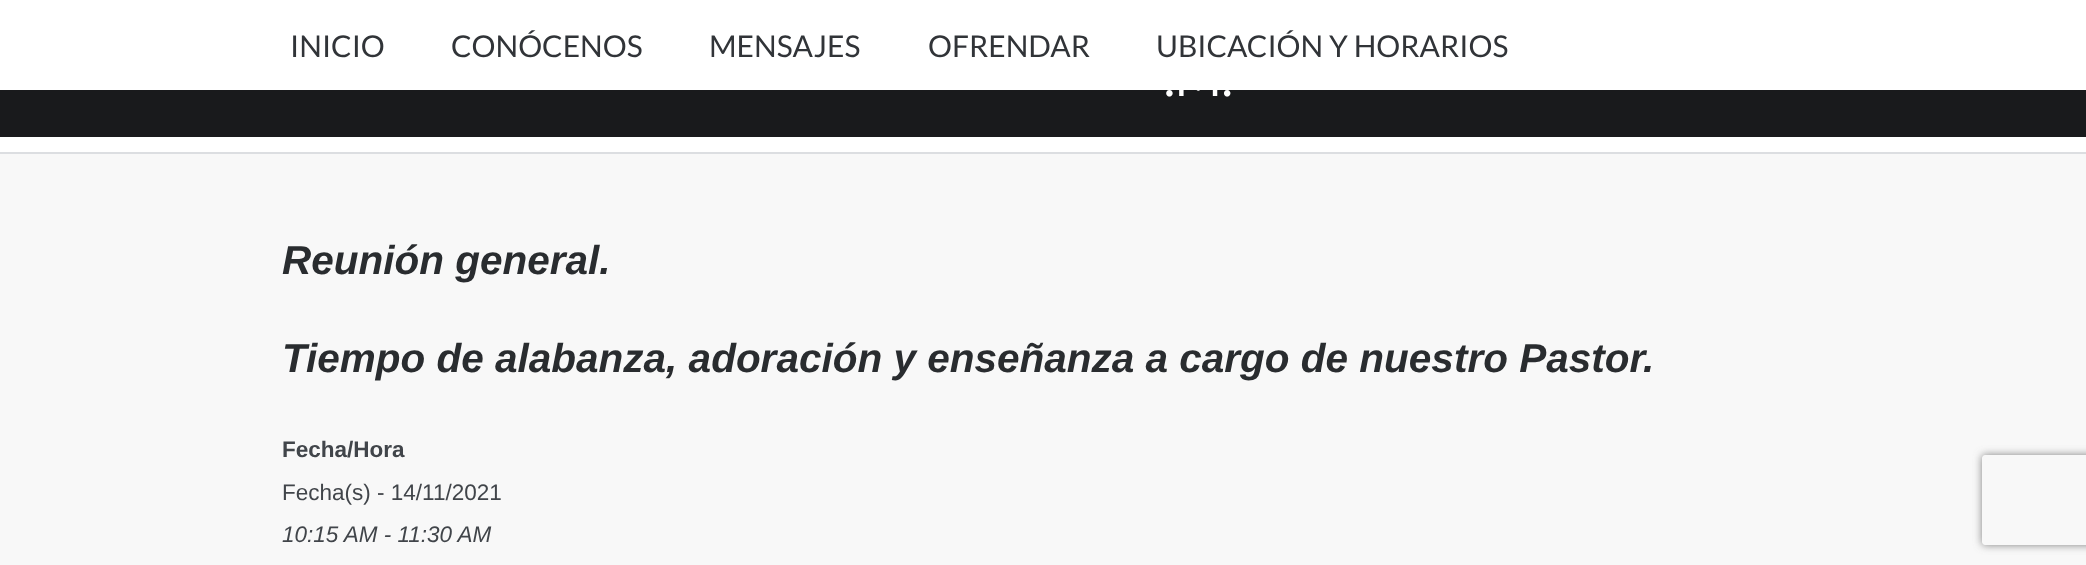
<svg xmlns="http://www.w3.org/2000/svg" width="2086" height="565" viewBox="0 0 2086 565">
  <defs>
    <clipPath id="clip1"><path d="M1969 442H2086V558H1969ZM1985 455H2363C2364.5 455 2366 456.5 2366 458V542C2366 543.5 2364.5 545 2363 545H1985C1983.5 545 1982 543.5 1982 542V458C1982 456.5 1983.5 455 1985 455Z" clip-rule="evenodd"/></clipPath>
    <filter id="blur1" x="-50%" y="-200%" width="200%" height="500%"><feGaussianBlur stdDeviation="4"/></filter>
  </defs>
  <rect width="100%" height="100%" fill="#f8f8f8"/>
  <rect x="0" y="0" width="2086" height="90" fill="#ffffff"/>
  <text x="290" y="57" font-family="Lato" font-size="30" fill="#313438">INICIO</text>
  <text x="451" y="57" font-family="Lato" font-size="30" fill="#313438">CONÓCENOS</text>
  <text x="709" y="57" font-family="Lato" font-size="30" fill="#313438">MENSAJES</text>
  <text x="928" y="57" font-family="Lato" font-size="30" fill="#313438">OFRENDAR</text>
  <text x="1156" y="57" font-family="Lato" font-size="30" fill="#313438">UBICACIÓN Y HORARIOS</text>
  <rect x="0" y="137" width="2086" height="15" fill="#ffffff"/>
  <rect x="0" y="90" width="2086" height="47" fill="#191a1c"/>
  <text x="1164" y="96" font-family="Lato" font-size="51" fill="#ffffff">.M.</text>
  <rect x="0" y="152" width="2086" height="2" fill="#dcdee1"/>
  <text x="282" y="274" font-family="Liberation Sans" font-size="40.5" font-weight="bold" font-style="italic" fill="#292c2f">Reunión general.</text>
  <text x="282" y="372" font-family="Liberation Sans" font-size="40.5" font-weight="bold" font-style="italic" fill="#292c2f">Tiempo de alabanza, adoración y enseñanza a cargo de nuestro Pastor.</text>
  <text x="282" y="457" font-family="Liberation Sans" font-size="22.5" font-weight="bold" fill="#41454a">Fecha/Hora</text>
  <text x="282" y="500" font-family="Liberation Sans" font-size="22.5" fill="#41454a">Fecha(s) - 14/11/2021</text>
  <text x="282" y="542" font-family="Liberation Sans" font-size="22.5" font-style="italic" fill="#41454a">10:15 AM - 11:30 AM</text>
  <g clip-path="url(#clip1)">
    <rect x="1982" y="455" width="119" height="90" rx="3" fill="#808080" filter="url(#blur1)"/>
  </g>
</svg>
